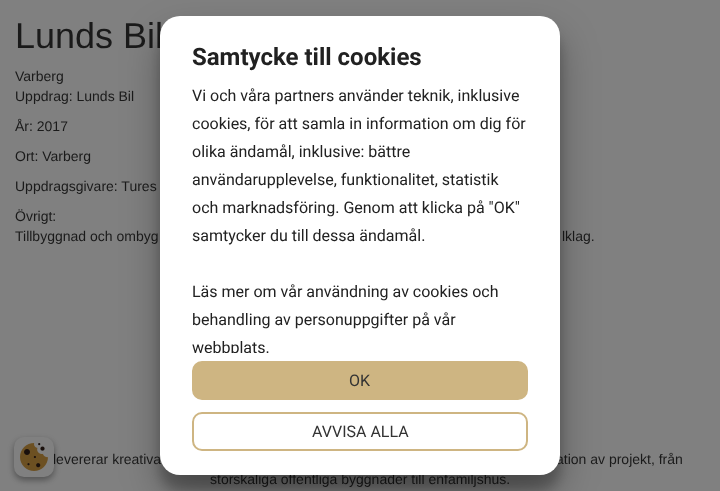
<svg xmlns="http://www.w3.org/2000/svg" width="720" height="491" viewBox="0 0 720 491">
  <defs>
    <filter id="blur1" x="-50%" y="-200%" width="200%" height="500%"><feGaussianBlur stdDeviation="6"/></filter>
    <filter id="blur2" x="-50%" y="-200%" width="200%" height="500%"><feGaussianBlur stdDeviation="19"/></filter>
    <filter id="blur3" x="-50%" y="-200%" width="200%" height="500%"><feGaussianBlur stdDeviation="3"/></filter>
  </defs>
  <rect width="100%" height="100%" fill="#808080"/>
  <text x="15" y="48" font-family="Liberation Sans" font-size="36" fill="#1a1a1a">Lunds Bil</text>
  <text x="15" y="81" font-family="Liberation Sans" font-size="14" fill="#1a1a1a">Varberg</text>
  <text x="15" y="101" font-family="Liberation Sans" font-size="14" fill="#1a1a1a">Uppdrag: Lunds Bil</text>
  <text x="15" y="131" font-family="Liberation Sans" font-size="14" fill="#1a1a1a">År: 2017</text>
  <text x="15" y="161" font-family="Liberation Sans" font-size="14" fill="#1a1a1a">Ort: Varberg</text>
  <text x="15" y="191" font-family="Liberation Sans" font-size="14" fill="#1a1a1a">Uppdragsgivare: Tures</text>
  <text x="15" y="221" font-family="Liberation Sans" font-size="14" fill="#1a1a1a">Övrigt:</text>
  <text x="15" y="241" font-family="Liberation Sans" font-size="14" fill="#1a1a1a">Tillbyggnad och ombyg</text>
  <text x="562" y="241" font-family="Liberation Sans" font-size="14" fill="#1a1a1a">lklag.</text>
  <text x="53" y="464" font-family="Liberation Sans" font-size="14" fill="#1a1a1a">levererar kreativa</text>
  <text x="556" y="464" font-family="Liberation Sans" font-size="14" fill="#1a1a1a">ation av projekt, från</text>
  <text x="210" y="484" font-family="Liberation Sans" font-size="14" fill="#1a1a1a">storskaliga offentliga byggnader till enfamiljshus.</text>
  <rect x="160" y="31" width="400" height="459" rx="20" fill="#000000" fill-opacity="0.22" filter="url(#blur1)"/>
  <rect x="160" y="35" width="400" height="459" rx="20" fill="#000000" fill-opacity="0.3" filter="url(#blur2)"/>
  <rect x="160" y="16" width="400" height="459" rx="20" fill="#ffffff"/>
  <text x="192" y="65" font-family="Roboto" font-size="24" font-weight="bold" fill="#212121">Samtycke till cookies</text>
  <text x="192" y="101" font-family="Roboto" font-size="16" fill="#212121">Vi och våra partners använder teknik, inklusive</text>
  <text x="192" y="129" font-family="Roboto" font-size="16" fill="#212121">cookies, för att samla in information om dig för</text>
  <text x="192" y="157" font-family="Roboto" font-size="16" fill="#212121">olika ändamål, inklusive: bättre</text>
  <text x="192" y="185" font-family="Roboto" font-size="16" fill="#212121">användarupplevelse, funktionalitet, statistik</text>
  <text x="192" y="213" font-family="Roboto" font-size="16" fill="#212121">och marknadsföring. Genom att klicka på "OK"</text>
  <text x="192" y="241" font-family="Roboto" font-size="16" fill="#212121">samtycker du till dessa ändamål.</text>
  <text x="192" y="297" font-family="Roboto" font-size="16" fill="#212121">Läs mer om vår användning av cookies och</text>
  <text x="192" y="325" font-family="Roboto" font-size="16" fill="#212121">behandling av personuppgifter på vår</text>
  <text x="192" y="353" font-family="Roboto" font-size="16" fill="#212121">webbplats.</text>
  <rect x="207" y="353" width="61" height="4" fill="#ffffff"/>
  <rect x="193" y="362" width="334" height="37" rx="9" fill="#ceb582" stroke="#ceb582" stroke-width="2"/>
  <text x="349" y="386" font-family="Roboto" font-size="16" fill="#333333">OK</text>
  <rect x="193" y="413" width="334" height="37" rx="9" fill="none" stroke="#ceb582" stroke-width="2"/>
  <text x="312" y="437" font-family="Roboto" font-size="16" fill="#333333">AVVISA ALLA</text>
  <rect x="14" y="440" width="40" height="40" rx="10" fill="#000000" fill-opacity="0.23" filter="url(#blur3)"/>
  <rect x="14" y="440" width="40" height="40" rx="10" fill="#000000" fill-opacity="0.16" filter="url(#blur3)"/>
  <rect x="14" y="437" width="40" height="40" rx="10" fill="#808080"/>
  <image x="20" y="443" width="28" height="28" href="img1.png"/>
</svg>
